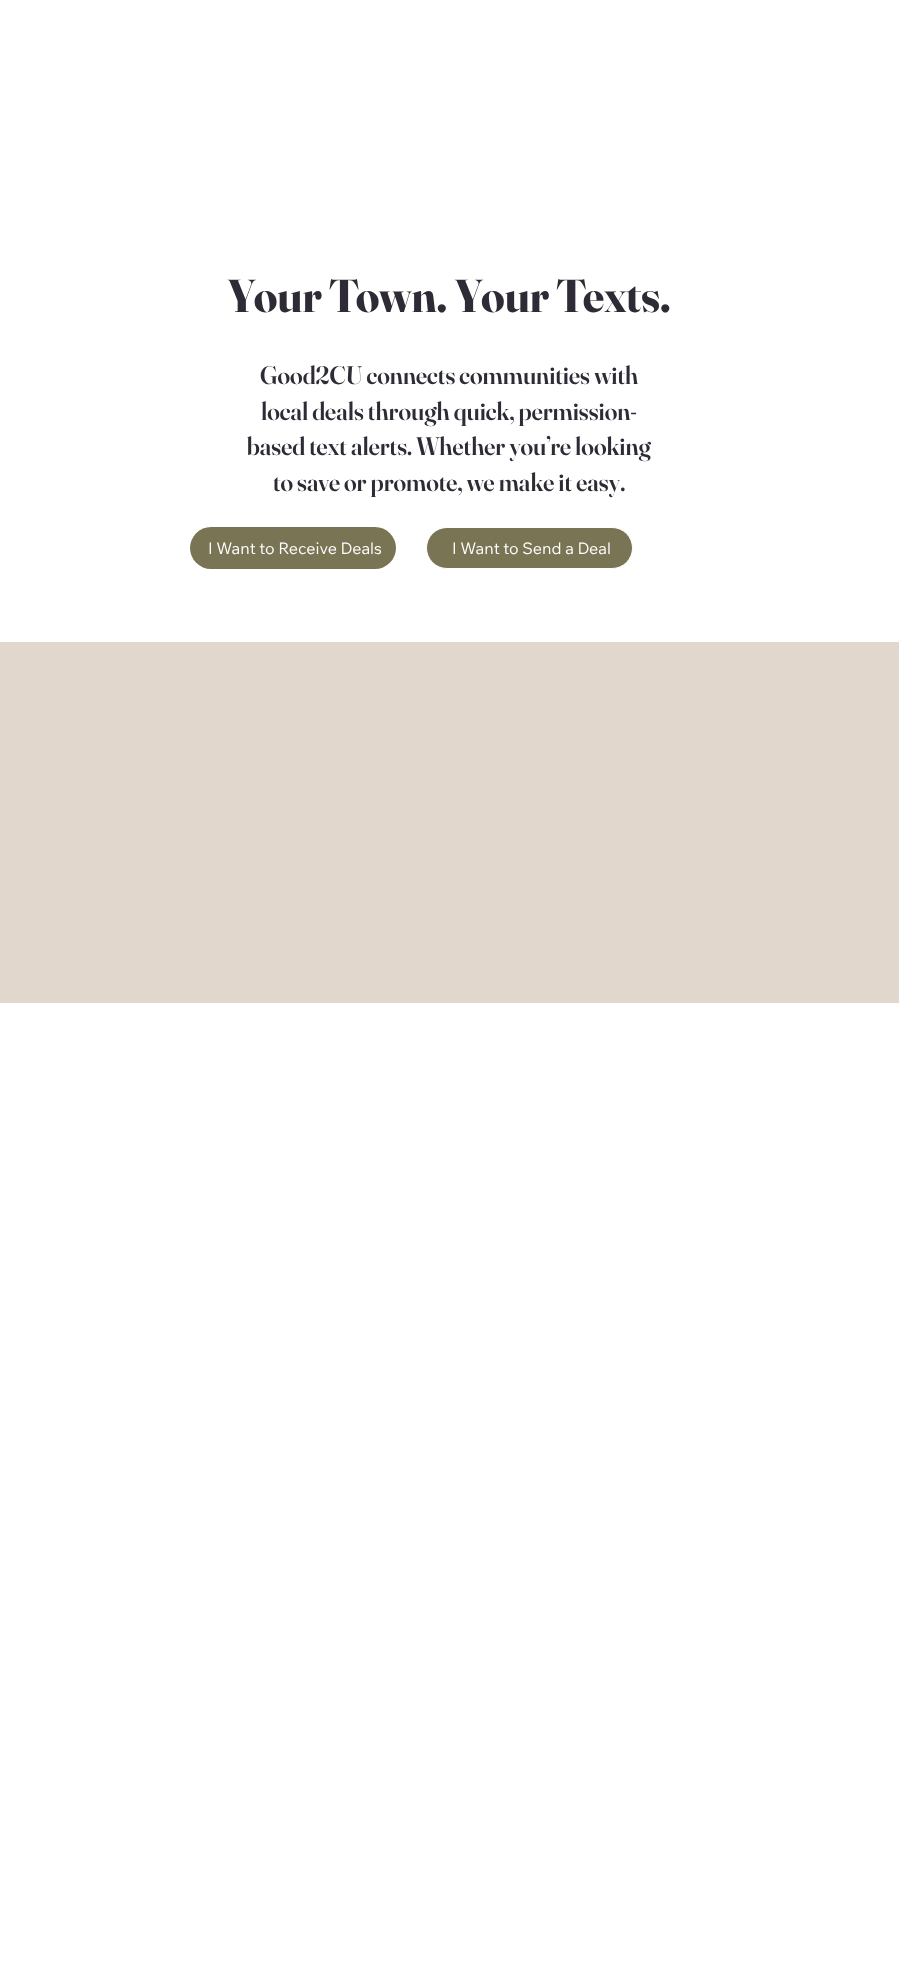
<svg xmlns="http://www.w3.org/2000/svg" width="899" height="1986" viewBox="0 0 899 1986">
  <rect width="100%" height="100%" fill="#ffffff"/>
  <text x="227" y="312" font-family="Fraunces" font-size="46.25" font-weight="bold" fill="#2f2b36">Your Town. Your Texts.</text>
  <text x="260" y="384" font-family="Fraunces" font-size="25.25" font-weight="600" fill="#2f2b36">Good2CU connects communities with</text>
  <text x="261" y="420" font-family="Fraunces" font-size="25.25" font-weight="600" fill="#2f2b36">local deals through quick, permission-</text>
  <text x="247" y="455" font-family="Fraunces" font-size="25.25" font-weight="600" fill="#2f2b36">based text alerts. Whether you’re looking</text>
  <text x="273" y="491" font-family="Fraunces" font-size="25.25" font-weight="600" fill="#2f2b36">to save or promote, we make it easy.</text>
  <rect x="190" y="527" width="206" height="42" rx="21" fill="#797454"/>
  <text x="208" y="554" font-family="Wix Madefor Text" font-size="16" fill="#ffffff">I Want to Receive Deals</text>
  <rect x="426.5" y="527.5" width="206" height="41" rx="20.5" fill="#797454" stroke="#ffffff"/>
  <text x="452" y="554" font-family="Wix Madefor Text" font-size="16" fill="#ffffff">I Want to Send a Deal</text>
  <rect x="0" y="642" width="899" height="361" fill="#e1d7cc"/>
</svg>
